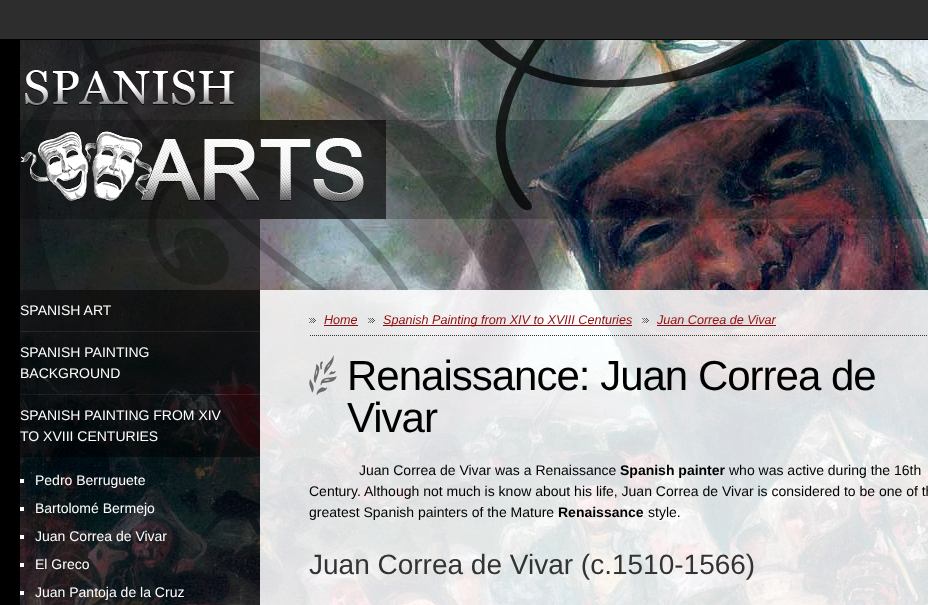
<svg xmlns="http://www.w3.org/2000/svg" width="928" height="605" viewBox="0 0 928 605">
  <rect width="100%" height="100%" fill="#000000"/>
  <image x="12" y="40" width="916" height="565" href="img1.png"/>
  <rect x="0" y="0" width="928" height="39" fill="#2d2d2d"/>
  <rect x="12" y="40" width="248" height="565" fill="#000000" fill-opacity="0.6"/>
  <image x="20" y="40" width="770" height="250" href="img2.png"/>
  <rect x="20" y="120" width="908" height="99" fill="#000000" fill-opacity="0.2"/>
  <image x="20" y="70" width="366" height="149" href="img3.png"/>
  <rect x="260" y="290" width="668" height="315" fill="#ffffff" fill-opacity="0.85"/>
  <rect x="20" y="290" width="240" height="41" fill="#000000" fill-opacity="0.5"/>
  <text x="20" y="315" font-family="Liberation Sans" font-size="14" fill="#ffffff">SPANISH ART</text>
  <rect x="20" y="332" width="240" height="62" fill="#000000" fill-opacity="0.5"/>
  <text x="20" y="357" font-family="Liberation Sans" font-size="14" fill="#ffffff">SPANISH PAINTING</text>
  <text x="20" y="378" font-family="Liberation Sans" font-size="14" fill="#ffffff">BACKGROUND</text>
  <rect x="20" y="395" width="240" height="62" fill="#000000" fill-opacity="0.5"/>
  <text x="20" y="420" font-family="Liberation Sans" font-size="14" fill="#ffffff">SPANISH PAINTING FROM XIV</text>
  <text x="20" y="441" font-family="Liberation Sans" font-size="14" fill="#ffffff">TO XVIII CENTURIES</text>
  <rect x="20" y="479" width="4" height="4" fill="#ffffff"/>
  <text x="35" y="485" font-family="Liberation Sans" font-size="14" fill="#ffffff">Pedro Berruguete</text>
  <rect x="20" y="507" width="4" height="4" fill="#ffffff"/>
  <text x="35" y="513" font-family="Liberation Sans" font-size="14" fill="#ffffff">Bartolomé Bermejo</text>
  <rect x="20" y="535" width="4" height="4" fill="#ffffff"/>
  <text x="35" y="541" font-family="Liberation Sans" font-size="14" fill="#ffffff">Juan Correa de Vivar</text>
  <rect x="20" y="563" width="4" height="4" fill="#ffffff"/>
  <text x="35" y="569" font-family="Liberation Sans" font-size="14" fill="#ffffff">El Greco</text>
  <rect x="20" y="591" width="4" height="4" fill="#ffffff"/>
  <text x="35" y="597" font-family="Liberation Sans" font-size="14" fill="#ffffff">Juan Pantoja de la Cruz</text>
  <image x="310" y="335" width="617" height="1" href="img4.png"/>
  <image x="309" y="318" width="7" height="5" href="img5.png"/>
  <text x="324" y="324" font-family="Liberation Sans" font-size="12.6" font-style="italic" fill="#930d0d">Home</text>
  <rect x="324" y="325" width="34" height="1" fill="#930d0d"/>
  <image x="368" y="318" width="7" height="5" href="img6.png"/>
  <rect x="383" y="325" width="249" height="1" fill="#930d0d"/>
  <text x="383" y="324" font-family="Liberation Sans" font-size="12.6" font-style="italic" fill="#930d0d">Spanish Painting from XIV to XVIII Centuries</text>
  <image x="642" y="318" width="7" height="5" href="img7.png"/>
  <text x="657" y="324" font-family="Liberation Sans" font-size="12.6" font-style="italic" fill="#930d0d">Juan Correa de Vivar</text>
  <rect x="657" y="325" width="119" height="1" fill="#930d0d"/>
  <image x="309" y="355" width="28" height="40" href="img8.png"/>
  <text x="347" y="390" font-family="Liberation Sans" font-size="42" letter-spacing="-1" fill="#000000">Renaissance: Juan Correa de</text>
  <text x="347" y="432" font-family="Liberation Sans" font-size="42" letter-spacing="-1" fill="#000000">Vivar</text>
  <text x="359" y="475" font-family="Liberation Sans" font-size="14" fill="#000000">Juan Correa de Vivar was a Renaissance</text>
  <text x="620" y="475" font-family="Liberation Sans" font-size="14" font-weight="bold" fill="#000000">Spanish painter</text>
  <text x="729" y="475" font-family="Liberation Sans" font-size="14" fill="#000000">who was active during the 16th</text>
  <text x="309" y="496" font-family="Liberation Sans" font-size="14" fill="#000000">Century. Although not much is know about his life, Juan Correa de Vivar is considered to be one of th</text>
  <text x="309" y="517" font-family="Liberation Sans" font-size="14" fill="#000000">greatest Spanish painters of the Mature</text>
  <text x="558" y="517" font-family="Liberation Sans" font-size="14" font-weight="bold" fill="#000000">Renaissance</text>
  <text x="648" y="517" font-family="Liberation Sans" font-size="14" fill="#000000">style.</text>
  <text x="309" y="574" font-family="Liberation Sans" font-size="28" fill="#333333">Juan Correa de Vivar (c.1510-1566)</text>
</svg>
